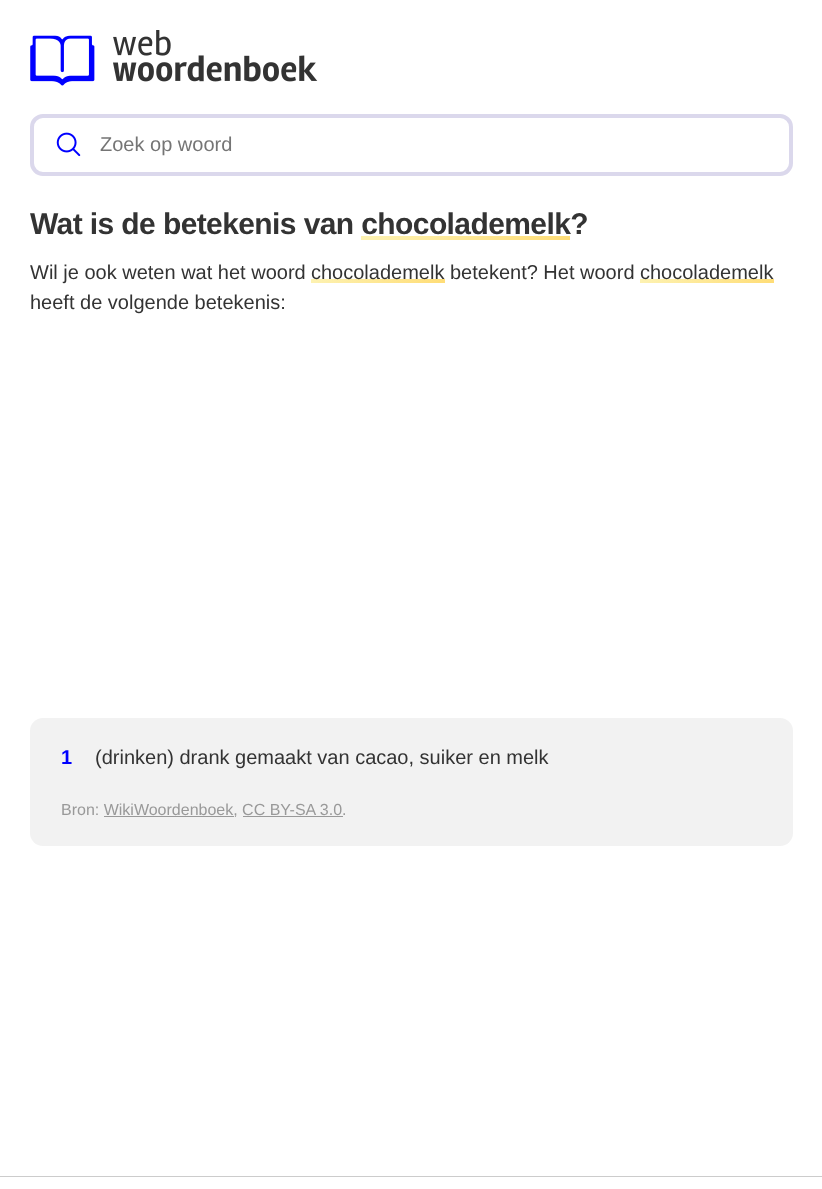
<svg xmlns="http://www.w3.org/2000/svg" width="822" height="1189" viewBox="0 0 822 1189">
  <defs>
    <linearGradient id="g1" gradientUnits="userSpaceOnUse" x1="387" y1="192" x2="545" y2="284"><stop offset="0" stop-color="#fdf2b2"/><stop offset="1" stop-color="#ffdd77"/></linearGradient>
    <linearGradient id="g2" gradientUnits="userSpaceOnUse" x1="327" y1="251" x2="429" y2="310"><stop offset="0" stop-color="#fdf2b2"/><stop offset="1" stop-color="#ffdd77"/></linearGradient>
    <linearGradient id="g3" gradientUnits="userSpaceOnUse" x1="656" y1="251" x2="758" y2="310"><stop offset="0" stop-color="#fdf2b2"/><stop offset="1" stop-color="#ffdd77"/></linearGradient>
  </defs>
  <rect width="100%" height="100%" fill="#ffffff"/>
  <image x="30" y="30" width="288" height="56" href="img1.png"/>
  <rect x="32" y="116" width="759" height="58" rx="11" fill="none" stroke="#dbd8ec" stroke-width="4"/>
  <image x="56" y="132" width="25" height="25" href="img2.png"/>
  <text x="100" y="151" font-family="Liberation Sans" font-size="20" fill="#757575">Zoek op woord</text>
  <text x="30" y="234" font-family="Liberation Sans" font-size="30" font-weight="bold" letter-spacing="-0.6" fill="#333333">Wat is de betekenis van chocolademelk?</text>
  <rect x="361" y="236" width="209" height="4" fill="url(#g1)"/>
  <text x="30" y="279" font-family="Liberation Sans" font-size="20" fill="#333333">Wil je ook weten wat het woord</text>
  <rect x="311" y="279" width="134" height="4" fill="url(#g2)"/>
  <text x="311" y="279" font-family="Liberation Sans" font-size="20" fill="#333333">chocolademelk betekent? Het woord</text>
  <rect x="640" y="279" width="134" height="4" fill="url(#g3)"/>
  <text x="640" y="279" font-family="Liberation Sans" font-size="20" fill="#333333">chocolademelk</text>
  <text x="30" y="309" font-family="Liberation Sans" font-size="20" fill="#333333">heeft de volgende betekenis:</text>
  <rect x="30" y="718" width="763" height="128" rx="13" fill="#f2f2f2"/>
  <text x="61" y="764" font-family="Liberation Sans" font-size="20" font-weight="bold" fill="#0000ff">1</text>
  <text x="95" y="764" font-family="Liberation Sans" font-size="20" fill="#333333">(drinken) drank gemaakt van cacao, suiker en melk</text>
  <text x="61" y="815" font-family="Liberation Sans" font-size="16" fill="#999999">Bron: WikiWoordenboek, CC BY-SA 3.0.</text>
  <rect x="104" y="816" width="130" height="1" fill="#999999"/>
  <rect x="243" y="816" width="100" height="1" fill="#999999"/>
  <rect x="0" y="1176" width="822" height="1" fill="#cccccc"/>
</svg>
